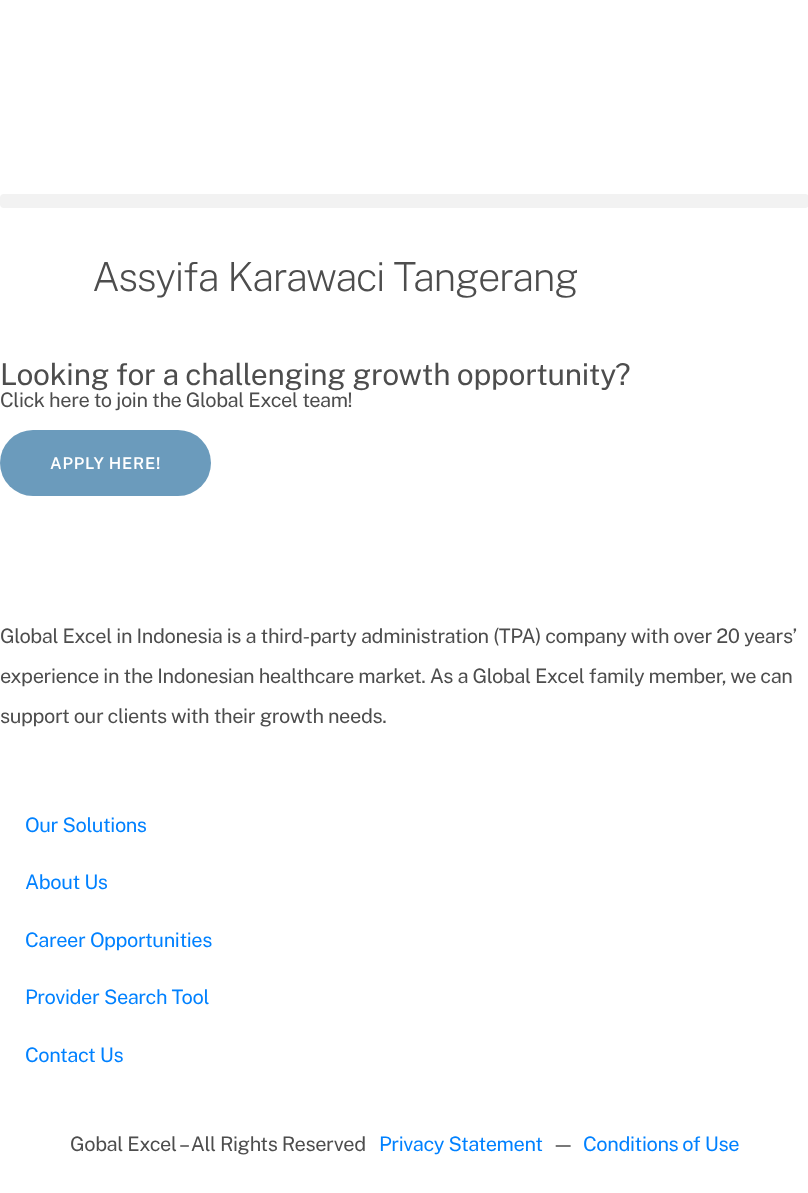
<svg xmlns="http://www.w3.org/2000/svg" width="808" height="1193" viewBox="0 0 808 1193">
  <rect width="100%" height="100%" fill="#ffffff"/>
  <rect x="0" y="194" width="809" height="14" rx="4" fill="#f2f2f2"/>
  <text x="92" y="291" font-family="Public Sans" font-size="40" font-weight="200" letter-spacing="-1.2" fill="#4d4d4d">Assyifa Karawaci Tangerang</text>
  <text x="0" y="385" font-family="Public Sans" font-size="30" letter-spacing="-0.3" fill="#4d4d4d">Looking for a challenging growth opportunity?</text>
  <text x="0" y="407" font-family="Public Sans" font-size="20" letter-spacing="-0.4" fill="#4d4d4d">Click here to join the Global Excel team!</text>
  <rect x="0" y="430" width="211" height="66" rx="33" fill="#6b9bbc"/>
  <text x="50" y="469" font-family="Public Sans" font-size="16.25" font-weight="600" letter-spacing="0.75" fill="#ffffff">APPLY HERE!</text>
  <text x="0" y="643" font-family="Public Sans" font-size="20" letter-spacing="-0.4" fill="#4d4d4d">Global Excel in Indonesia is a third-party administration (TPA) company with over 20 years’</text>
  <text x="0" y="683" font-family="Public Sans" font-size="20" letter-spacing="-0.4" fill="#4d4d4d">experience in the Indonesian healthcare market. As a Global Excel family member, we can</text>
  <text x="0" y="723" font-family="Public Sans" font-size="20" letter-spacing="-0.4" fill="#4d4d4d">support our clients with their growth needs.</text>
  <text x="25" y="832" font-family="Public Sans" font-size="20" letter-spacing="-0.4" fill="#0081ff">Our Solutions</text>
  <text x="25" y="889" font-family="Public Sans" font-size="20" letter-spacing="-0.4" fill="#0081ff">About Us</text>
  <text x="25" y="947" font-family="Public Sans" font-size="20" letter-spacing="-0.4" fill="#0081ff">Career Opportunities</text>
  <text x="25" y="1004" font-family="Public Sans" font-size="20" letter-spacing="-0.4" fill="#0081ff">Provider Search Tool</text>
  <text x="25" y="1062" font-family="Public Sans" font-size="20" letter-spacing="-0.4" fill="#0081ff">Contact Us</text>
  <text x="70" y="1151" font-family="Public Sans" font-size="20" letter-spacing="-0.4" fill="#4d4d4d">Gobal Excel – All Rights Reserved</text>
  <text x="379" y="1151" font-family="Public Sans" font-size="20" letter-spacing="-0.4" fill="#0081ff">Privacy Statement</text>
  <text x="552" y="1151" font-family="Public Sans" font-size="20" letter-spacing="-0.4" fill="#4d4d4d">—</text>
  <text x="583" y="1151" font-family="Public Sans" font-size="20" letter-spacing="-0.4" fill="#0081ff">Conditions of Use</text>
</svg>
